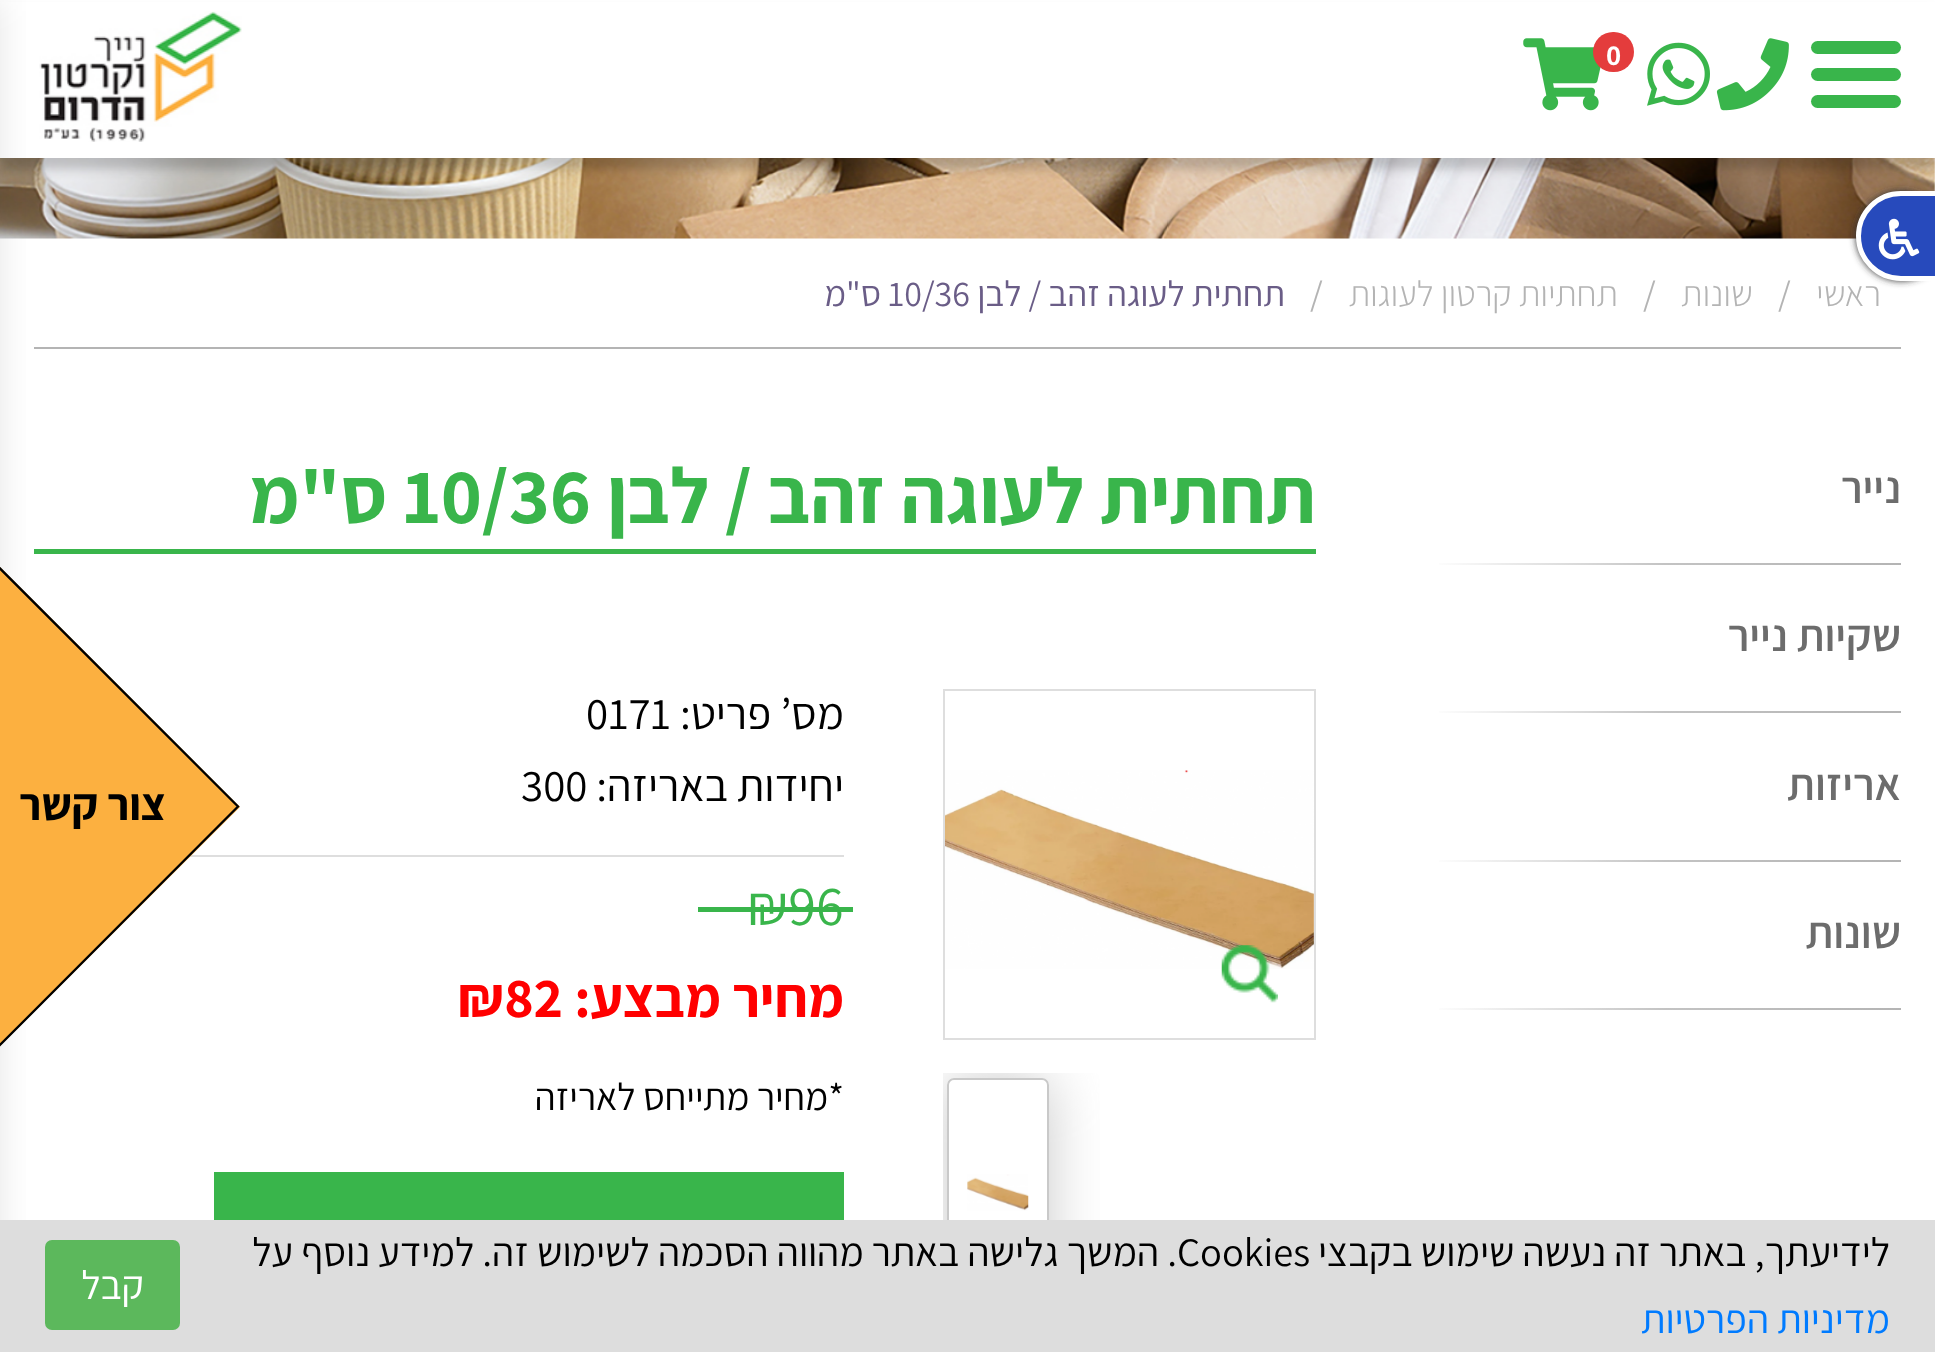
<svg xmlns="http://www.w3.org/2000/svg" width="1935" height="1352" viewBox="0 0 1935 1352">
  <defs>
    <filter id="blur1" x="-50%" y="-200%" width="200%" height="500%"><feGaussianBlur stdDeviation="5.5"/></filter>
    <filter id="blur2" x="-50%" y="-200%" width="200%" height="500%"><feGaussianBlur stdDeviation="3.5"/></filter>
    <linearGradient id="g1" gradientUnits="userSpaceOnUse" x1="1429" y1="564" x2="1901" y2="564"><stop offset="0" stop-color="#ffffff"/><stop offset="0.5" stop-color="#c3c3c3"/><stop offset="1" stop-color="#b4b4b4"/></linearGradient>
    <linearGradient id="g2" gradientUnits="userSpaceOnUse" x1="1429" y1="712" x2="1901" y2="712"><stop offset="0" stop-color="#ffffff"/><stop offset="0.5" stop-color="#c3c3c3"/><stop offset="1" stop-color="#b4b4b4"/></linearGradient>
    <linearGradient id="g3" gradientUnits="userSpaceOnUse" x1="1429" y1="861" x2="1901" y2="861"><stop offset="0" stop-color="#ffffff"/><stop offset="0.5" stop-color="#c3c3c3"/><stop offset="1" stop-color="#b4b4b4"/></linearGradient>
    <linearGradient id="g4" gradientUnits="userSpaceOnUse" x1="1429" y1="1009" x2="1901" y2="1009"><stop offset="0" stop-color="#ffffff"/><stop offset="0.5" stop-color="#c3c3c3"/><stop offset="1" stop-color="#b4b4b4"/></linearGradient>
    <clipPath id="clip1"><rect x="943" y="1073" width="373" height="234"/></clipPath>
    <clipPath id="clip2"><path d="M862 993H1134V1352H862ZM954 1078H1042C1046 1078 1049 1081 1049 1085V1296C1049 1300 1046 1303 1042 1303H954C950 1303 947 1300 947 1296V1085C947 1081 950 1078 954 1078Z" clip-rule="evenodd"/></clipPath>
    <filter id="blur3" x="-50%" y="-200%" width="200%" height="500%"><feGaussianBlur stdDeviation="28"/></filter>
    <filter id="blur4" x="-50%" y="-200%" width="200%" height="500%"><feGaussianBlur stdDeviation="17"/></filter>
  </defs>
  <rect width="100%" height="100%" fill="#ffffff"/>
  <image x="0" y="158" width="1935" height="81" href="img6.png"/>
  <rect x="0" y="11" width="1935" height="158" fill="#000000" fill-opacity="0.2" filter="url(#blur1)"/>
  <rect x="0" y="2" width="1935" height="156" fill="#ffffff"/>
  <rect x="1811" y="68" width="90" height="13" rx="6.5" fill="#39b54b"/>
  <rect x="1811" y="41" width="90" height="13" rx="6.5" fill="#39b54b"/>
  <rect x="1811" y="95" width="90" height="13" rx="6.5" fill="#39b54b"/>
  <image x="1716" y="38" width="73" height="73" href="img1.png"/>
  <image x="1647" y="42" width="63" height="64" href="img2.png"/>
  <image x="1523" y="38" width="78" height="73" href="img3.png"/>
  <rect x="1593" y="32" width="41" height="40" rx="20" fill="#e43c3c"/>
  <text x="1606" y="65" font-family="Assistant" font-size="29" font-weight="bold" fill="#ffffff">0</text>
  <image x="39" y="11" width="203" height="131" href="img4.png"/>
  <rect x="1856" y="191" width="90" height="90" rx="45" fill="#333333" filter="url(#blur2)"/>
  <path d="M1901 193.5H1935C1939.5 193.5 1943.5 197.5 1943.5 202V270C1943.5 274.5 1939.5 278.5 1935 278.5H1901C1877.5 278.5 1858.5 259.5 1858.5 236C1858.5 212.5 1877.5 193.5 1901 193.5Z" fill="#274abc" stroke="#ffffff" stroke-width="5"/>
  <image x="1878" y="218" width="42" height="42" href="img5.png"/>
  <rect x="34" y="347" width="1867" height="2" fill="#b4b4b4"/>
  <text x="1881" y="306" font-family="Assistant" font-size="36" font-weight="300" direction="rtl" fill="#b4b4b4">ראשי</text>
  <text x="1778" y="306" font-family="Assistant" font-size="36" fill="#b4b4b4">/</text>
  <text x="1753" y="306" font-family="Assistant" font-size="36" font-weight="300" direction="rtl" fill="#b4b4b4">שונות</text>
  <text x="1643" y="306" font-family="Assistant" font-size="36" fill="#b4b4b4">/</text>
  <text x="1618" y="306" font-family="Assistant" font-size="36" font-weight="300" direction="rtl" fill="#b4b4b4">תחתיות קרטון לעוגות</text>
  <text x="1310" y="306" font-family="Assistant" font-size="36" fill="#b4b4b4">/</text>
  <text x="1285" y="306" font-family="Assistant" font-size="36" direction="rtl" fill="#6a5d87">תחתית לעוגה זהב / לבן</text>
  <text x="888" y="306" font-family="Assistant" font-size="36" fill="#6a5d87">10/36</text>
  <text x="881" y="306" font-family="Assistant" font-size="36" direction="rtl" fill="#6a5d87">ס"מ</text>
  <text x="1901" y="503" font-family="Assistant" font-size="45" font-weight="600" direction="rtl" fill="#6c6c6c">נייר</text>
  <rect x="1439" y="563" width="462" height="2" fill="url(#g1)"/>
  <text x="1901" y="651" font-family="Assistant" font-size="45" font-weight="600" direction="rtl" fill="#6c6c6c">שקיות נייר</text>
  <rect x="1439" y="711" width="462" height="2" fill="url(#g2)"/>
  <text x="1901" y="800" font-family="Assistant" font-size="45" font-weight="600" direction="rtl" fill="#6c6c6c">אריזות</text>
  <rect x="1439" y="860" width="462" height="2" fill="url(#g3)"/>
  <text x="1901" y="948" font-family="Assistant" font-size="45" font-weight="600" direction="rtl" fill="#6c6c6c">שונות</text>
  <rect x="1439" y="1008" width="462" height="2" fill="url(#g4)"/>
  <rect x="34" y="549" width="1282" height="5" fill="#39b54b"/>
  <text x="1316" y="523" font-family="Assistant" font-size="78.75" font-weight="bold" direction="rtl" fill="#39b54b">תחתית לעוגה זהב / לבן</text>
  <text x="403" y="523" font-family="Assistant" font-size="78.75" font-weight="bold" fill="#39b54b">10/36</text>
  <text x="388" y="523" font-family="Assistant" font-size="78.75" font-weight="bold" direction="rtl" fill="#39b54b">ס"מ</text>
  <rect x="944" y="690" width="371" height="349" fill="none" stroke="#dedede" stroke-width="2"/>
  <image x="945" y="770" width="369" height="199" href="img7.png"/>
  <image x="1221" y="945" width="57" height="58" href="img8.png"/>
  <g clip-path="url(#clip1)">
    <g clip-path="url(#clip2)">
      <rect x="947" y="1078" width="102" height="225" rx="7" fill="#c9c9c9" filter="url(#blur3)"/>
    </g>
  </g>
  <image x="967" y="1174" width="62" height="37" href="img9.png"/>
  <rect x="948" y="1079" width="100" height="223" rx="6" fill="none" stroke="#c9c9c9" stroke-width="2"/>
  <rect x="189" y="855" width="655" height="2" fill="#dedede"/>
  <text x="844" y="729" font-family="Assistant" font-size="45" direction="rtl" fill="#000000">מס’ פריט:</text>
  <text x="586" y="729" font-family="Assistant" font-size="45" fill="#000000">0171</text>
  <text x="844" y="801" font-family="Assistant" font-size="45" direction="rtl" fill="#000000">יחידות באריזה:</text>
  <text x="521" y="801" font-family="Assistant" font-size="45" fill="#000000">300</text>
  <text x="747" y="925" font-family="Assistant" font-size="56.25" fill="#39b54b">₪96</text>
  <rect x="698" y="907" width="155" height="5" fill="#39b54b"/>
  <text x="844" y="1017" font-family="Assistant" font-size="56.25" font-weight="bold" direction="rtl" fill="#ff0000">מחיר מבצע:</text>
  <text x="457" y="1017" font-family="Assistant" font-size="56.25" font-weight="bold" fill="#ff0000">₪82</text>
  <text x="844" y="1110" font-family="Assistant" font-size="38.25" direction="rtl" fill="#000000">*מחיר מתייחס לאריזה</text>
  <rect x="214" y="1172" width="630" height="48" fill="#39b54b"/>
  <rect x="-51" y="0" width="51" height="1352" fill="#000000" fill-opacity="0.1" filter="url(#blur4)"/>
  <path d="M-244 807L-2 565L240 807L-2 1048Z" fill="#fcb040"/>
  <path d="M-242.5 806.5L-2 566.5L238 806.5L-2 1047Z" fill="none" stroke="#000000" stroke-width="2.3"/>
  <text x="166" y="820" font-family="Assistant" font-size="45" font-weight="bold" direction="rtl" fill="#000000">צור קשר</text>
  <rect x="0" y="1220" width="1935" height="132" fill="#dddddd"/>
  <text x="1890" y="1266" font-family="Assistant" font-size="40.5" direction="rtl" fill="#000000">לידיעתך, באתר זה נעשה שימוש בקבצי</text>
  <text x="1177" y="1266" font-family="Assistant" font-size="40.5" fill="#000000">Cookies</text>
  <text x="1177" y="1266" font-family="Assistant" font-size="40.5" direction="rtl" fill="#000000">. המשך גלישה באתר מהווה הסכמה לשימוש זה. למידע נוסף על</text>
  <text x="1890" y="1333" font-family="Assistant" font-size="40.5" direction="rtl" fill="#007bff">מדיניות הפרטיות</text>
  <rect x="45" y="1240" width="135" height="90" rx="7" fill="#5cb85c"/>
  <text x="144" y="1299" font-family="Assistant" font-size="40.5" direction="rtl" fill="#ffffff">קבל</text>
</svg>
